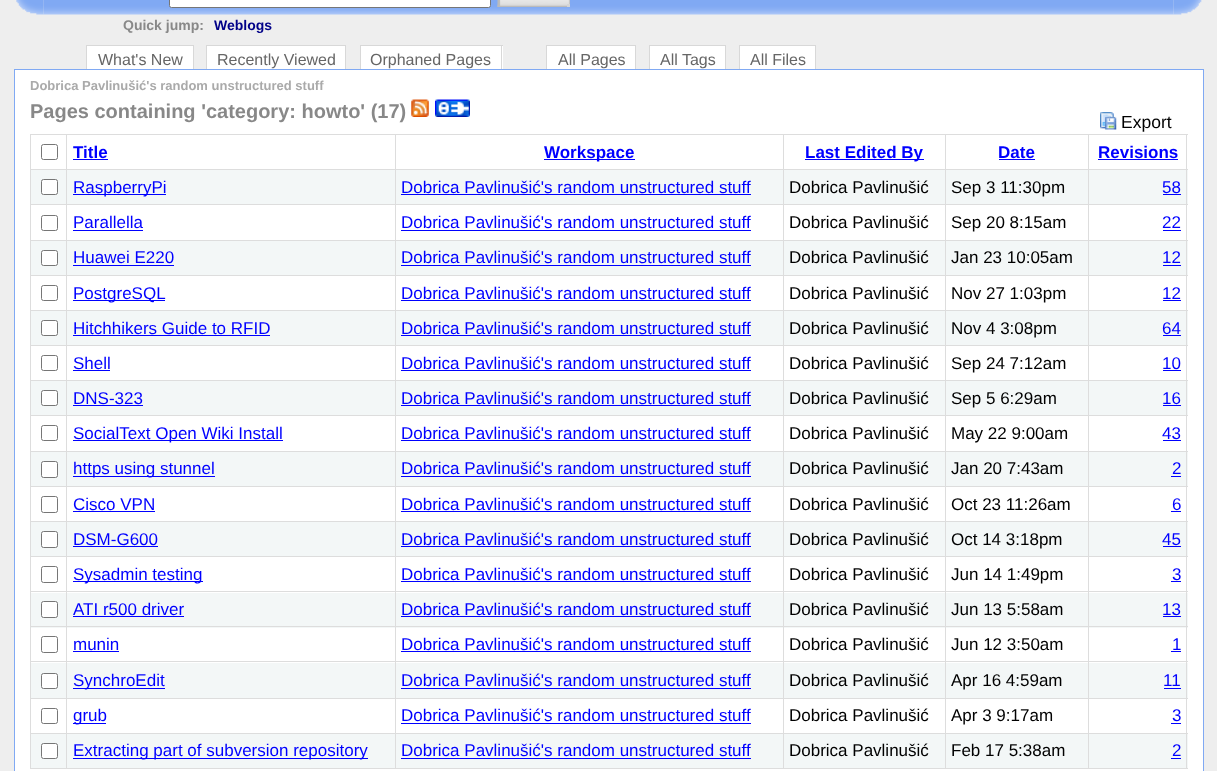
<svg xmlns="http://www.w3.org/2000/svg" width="1217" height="771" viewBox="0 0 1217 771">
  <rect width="100%" height="100%" fill="#eeeeee"/>
  <image x="1173" y="0" width="29" height="15" href="img1.png"/>
  <image x="16" y="0" width="28" height="15" href="img2.png"/>
  <image x="43" y="0" width="1131" height="15" href="img3.png"/>
  <rect x="169.5" y="-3.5" width="321" height="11" rx="2" fill="#ffffff" stroke="#767676"/>
  <image x="497" y="0" width="71" height="7" href="img4.png"/>
  <image x="568" y="0" width="2" height="4" href="img5.png"/>
  <image x="497" y="4" width="70" height="3" href="img6.png"/>
  <rect x="567" y="4" width="3" height="3" fill="#d5d5d5"/>
  <text x="123" y="30" font-family="Liberation Sans" font-size="14" font-weight="bold" fill="#888888">Quick jump:</text>
  <text x="214" y="30" font-family="Liberation Sans" font-size="14" font-weight="bold" fill="#000088">Weblogs</text>
  <rect x="87" y="46" width="106" height="23" fill="#ffffff"/>
  <rect x="86" y="45" width="108" height="1" fill="#d8d8d8"/>
  <rect x="193" y="45" width="1" height="25" fill="#d8d8d8"/>
  <rect x="86" y="45" width="1" height="25" fill="#d8d8d8"/>
  <text x="98" y="65" font-family="Liberation Sans" font-size="16" fill="#666666">What's New</text>
  <rect x="207" y="46" width="138" height="23" fill="#ffffff"/>
  <rect x="206" y="45" width="140" height="1" fill="#d8d8d8"/>
  <rect x="345" y="45" width="1" height="25" fill="#d8d8d8"/>
  <rect x="206" y="45" width="1" height="25" fill="#d8d8d8"/>
  <text x="217" y="65" font-family="Liberation Sans" font-size="16" fill="#666666">Recently Viewed</text>
  <rect x="361" y="46" width="142" height="23" fill="#ffffff"/>
  <rect x="360" y="45" width="143" height="1" fill="#d8d8d8"/>
  <rect x="501" y="45" width="1" height="25" fill="#d8d8d8"/>
  <rect x="360" y="45" width="1" height="25" fill="#d8d8d8"/>
  <text x="370" y="65" font-family="Liberation Sans" font-size="16" fill="#666666">Orphaned Pages</text>
  <rect x="547" y="46" width="88" height="23" fill="#ffffff"/>
  <rect x="546" y="45" width="90" height="1" fill="#d8d8d8"/>
  <rect x="635" y="45" width="1" height="25" fill="#d8d8d8"/>
  <rect x="546" y="45" width="1" height="25" fill="#d8d8d8"/>
  <text x="558" y="65" font-family="Liberation Sans" font-size="16" fill="#666666">All Pages</text>
  <rect x="650" y="46" width="75" height="23" fill="#ffffff"/>
  <rect x="649" y="45" width="77" height="1" fill="#d8d8d8"/>
  <rect x="725" y="45" width="1" height="25" fill="#d8d8d8"/>
  <rect x="649" y="45" width="1" height="25" fill="#d8d8d8"/>
  <text x="660" y="65" font-family="Liberation Sans" font-size="16" fill="#666666">All Tags</text>
  <rect x="740" y="46" width="75" height="23" fill="#ffffff"/>
  <rect x="739" y="45" width="77" height="1" fill="#d8d8d8"/>
  <rect x="815" y="45" width="1" height="25" fill="#d8d8d8"/>
  <rect x="739" y="45" width="1" height="25" fill="#d8d8d8"/>
  <text x="750" y="65" font-family="Liberation Sans" font-size="16" fill="#666666">All Files</text>
  <rect x="14.5" y="69.5" width="1189" height="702" fill="#ffffff" stroke="#80a9f3"/>
  <text x="30" y="90" font-family="Liberation Sans" font-size="13" font-weight="bold" fill="#aaaaaa">Dobrica Pavlinušić's random unstructured stuff</text>
  <text x="30" y="118" font-family="Liberation Sans" font-size="20" font-weight="bold" fill="#888888">Pages containing 'category: howto' (17)</text>
  <image x="411" y="99" width="18" height="18" href="img7.png"/>
  <image x="435" y="99" width="35" height="18" href="img8.png"/>
  <image x="1100" y="112" width="17" height="18" href="img9.png"/>
  <text x="1121" y="128" font-family="Liberation Sans" font-size="17.5" fill="#000000">Export</text>
  <rect x="30" y="134" width="1158" height="1" fill="#dddddd"/>
  <rect x="31" y="170" width="1157" height="34" fill="#f3f7f7"/>
  <rect x="31" y="241" width="1157" height="34" fill="#f3f7f7"/>
  <rect x="31" y="311" width="1157" height="34" fill="#f3f7f7"/>
  <rect x="31" y="381" width="1157" height="34" fill="#f3f7f7"/>
  <rect x="31" y="452" width="1157" height="34" fill="#f3f7f7"/>
  <rect x="31" y="522" width="1157" height="34" fill="#f3f7f7"/>
  <rect x="31" y="593" width="1157" height="35" fill="#f3f7f7"/>
  <rect x="31" y="663" width="1157" height="35" fill="#f3f7f7"/>
  <rect x="31" y="734" width="1157" height="34" fill="#f3f7f7"/>
  <rect x="1186" y="134" width="1" height="635" fill="#dddddd"/>
  <rect x="30" y="768" width="1158" height="1" fill="#dddddd"/>
  <rect x="30" y="134" width="1" height="635" fill="#dddddd"/>
  <rect x="41.5" y="144.5" width="16" height="15" rx="2" fill="none" stroke="#767676"/>
  <text x="73" y="158" font-family="Liberation Sans" font-size="17" font-weight="bold" fill="#0000ff">Title</text>
  <rect x="73" y="159" width="35" height="1" fill="#0000ff"/>
  <rect x="544" y="159" width="91" height="1" fill="#0000ff"/>
  <text x="544" y="158" font-family="Liberation Sans" font-size="17" font-weight="bold" fill="#0000ff">Workspace</text>
  <rect x="805" y="159" width="119" height="1" fill="#0000ff"/>
  <text x="805" y="158" font-family="Liberation Sans" font-size="17" font-weight="bold" fill="#0000ff">Last Edited By</text>
  <text x="998" y="158" font-family="Liberation Sans" font-size="17" font-weight="bold" fill="#0000ff">Date</text>
  <rect x="999" y="159" width="36" height="1" fill="#0000ff"/>
  <text x="1098" y="158" font-family="Liberation Sans" font-size="17" font-weight="bold" fill="#0000ff">Revisions</text>
  <rect x="1098" y="159" width="80" height="1" fill="#0000ff"/>
  <rect x="30" y="169" width="1158" height="1" fill="#dddddd"/>
  <rect x="41.5" y="179.5" width="16" height="15" rx="2" fill="#ffffff" stroke="#767676"/>
  <rect x="73" y="194" width="93" height="1" fill="#0000ff"/>
  <text x="73" y="193" font-family="Liberation Sans" font-size="17" fill="#0000ff">RaspberryPi</text>
  <text x="401" y="193" font-family="Liberation Sans" font-size="17" fill="#0000ff">Dobrica Pavlinušić's random unstructured stuff</text>
  <rect x="401" y="194" width="350" height="1" fill="#0000ff"/>
  <text x="789" y="193" font-family="Liberation Sans" font-size="17" fill="#000000">Dobrica Pavlinušić</text>
  <text x="951" y="193" font-family="Liberation Sans" font-size="17" fill="#000000">Sep 3 11:30pm</text>
  <text x="1162" y="193" font-family="Liberation Sans" font-size="17" fill="#0000ff">58</text>
  <rect x="1163" y="194" width="18" height="1" fill="#0000ff"/>
  <rect x="30" y="204" width="1158" height="1" fill="#dddddd"/>
  <rect x="41.5" y="215.5" width="16" height="15" rx="2" fill="none" stroke="#767676"/>
  <text x="73" y="228" font-family="Liberation Sans" font-size="17" fill="#0000ff">Parallella</text>
  <rect x="73" y="230" width="70" height="1" fill="#0000ff"/>
  <text x="401" y="228" font-family="Liberation Sans" font-size="17" fill="#0000ff">Dobrica Pavlinušić's random unstructured stuff</text>
  <rect x="401" y="230" width="350" height="1" fill="#0000ff"/>
  <text x="789" y="228" font-family="Liberation Sans" font-size="17" fill="#000000">Dobrica Pavlinušić</text>
  <text x="951" y="228" font-family="Liberation Sans" font-size="17" fill="#000000">Sep 20 8:15am</text>
  <text x="1162" y="228" font-family="Liberation Sans" font-size="17" fill="#0000ff">22</text>
  <rect x="1163" y="230" width="18" height="1" fill="#0000ff"/>
  <rect x="30" y="240" width="1158" height="1" fill="#dddddd"/>
  <rect x="41.5" y="250.5" width="16" height="15" rx="2" fill="#ffffff" stroke="#767676"/>
  <text x="73" y="263" font-family="Liberation Sans" font-size="17" fill="#0000ff">Huawei E220</text>
  <rect x="73" y="265" width="101" height="1" fill="#0000ff"/>
  <text x="401" y="263" font-family="Liberation Sans" font-size="17" fill="#0000ff">Dobrica Pavlinušić's random unstructured stuff</text>
  <rect x="401" y="265" width="350" height="1" fill="#0000ff"/>
  <text x="789" y="263" font-family="Liberation Sans" font-size="17" fill="#000000">Dobrica Pavlinušić</text>
  <text x="951" y="263" font-family="Liberation Sans" font-size="17" fill="#000000">Jan 23 10:05am</text>
  <text x="1162" y="263" font-family="Liberation Sans" font-size="17" fill="#0000ff">12</text>
  <rect x="1163" y="265" width="18" height="1" fill="#0000ff"/>
  <rect x="30" y="275" width="1158" height="1" fill="#dddddd"/>
  <rect x="41.5" y="285.5" width="16" height="15" rx="2" fill="none" stroke="#767676"/>
  <rect x="73" y="300" width="92" height="1" fill="#0000ff"/>
  <text x="73" y="299" font-family="Liberation Sans" font-size="17" fill="#0000ff">PostgreSQL</text>
  <text x="401" y="299" font-family="Liberation Sans" font-size="17" fill="#0000ff">Dobrica Pavlinušić's random unstructured stuff</text>
  <rect x="401" y="300" width="350" height="1" fill="#0000ff"/>
  <text x="789" y="299" font-family="Liberation Sans" font-size="17" fill="#000000">Dobrica Pavlinušić</text>
  <text x="951" y="299" font-family="Liberation Sans" font-size="17" fill="#000000">Nov 27 1:03pm</text>
  <text x="1162" y="299" font-family="Liberation Sans" font-size="17" fill="#0000ff">12</text>
  <rect x="1163" y="300" width="18" height="1" fill="#0000ff"/>
  <rect x="30" y="310" width="1158" height="1" fill="#dddddd"/>
  <rect x="41.5" y="320.5" width="16" height="15" rx="2" fill="#ffffff" stroke="#767676"/>
  <text x="73" y="334" font-family="Liberation Sans" font-size="17" fill="#0000ff">Hitchhikers Guide to RFID</text>
  <rect x="73" y="335" width="197" height="1" fill="#0000ff"/>
  <text x="401" y="334" font-family="Liberation Sans" font-size="17" fill="#0000ff">Dobrica Pavlinušić's random unstructured stuff</text>
  <rect x="401" y="335" width="350" height="1" fill="#0000ff"/>
  <text x="789" y="334" font-family="Liberation Sans" font-size="17" fill="#000000">Dobrica Pavlinušić</text>
  <text x="951" y="334" font-family="Liberation Sans" font-size="17" fill="#000000">Nov 4 3:08pm</text>
  <text x="1162" y="334" font-family="Liberation Sans" font-size="17" fill="#0000ff">64</text>
  <rect x="1163" y="335" width="18" height="1" fill="#0000ff"/>
  <rect x="30" y="345" width="1158" height="1" fill="#dddddd"/>
  <rect x="41.5" y="355.5" width="16" height="15" rx="2" fill="none" stroke="#767676"/>
  <text x="73" y="369" font-family="Liberation Sans" font-size="17" fill="#0000ff">Shell</text>
  <rect x="73" y="370" width="37" height="1" fill="#0000ff"/>
  <text x="401" y="369" font-family="Liberation Sans" font-size="17" fill="#0000ff">Dobrica Pavlinušić's random unstructured stuff</text>
  <rect x="401" y="370" width="350" height="1" fill="#0000ff"/>
  <text x="789" y="369" font-family="Liberation Sans" font-size="17" fill="#000000">Dobrica Pavlinušić</text>
  <text x="951" y="369" font-family="Liberation Sans" font-size="17" fill="#000000">Sep 24 7:12am</text>
  <text x="1162" y="369" font-family="Liberation Sans" font-size="17" fill="#0000ff">10</text>
  <rect x="1163" y="370" width="18" height="1" fill="#0000ff"/>
  <rect x="30" y="380" width="1158" height="1" fill="#dddddd"/>
  <rect x="41.5" y="390.5" width="16" height="15" rx="2" fill="#ffffff" stroke="#767676"/>
  <text x="73" y="404" font-family="Liberation Sans" font-size="17" fill="#0000ff">DNS-323</text>
  <rect x="73" y="405" width="70" height="1" fill="#0000ff"/>
  <text x="401" y="404" font-family="Liberation Sans" font-size="17" fill="#0000ff">Dobrica Pavlinušić's random unstructured stuff</text>
  <rect x="401" y="405" width="350" height="1" fill="#0000ff"/>
  <text x="789" y="404" font-family="Liberation Sans" font-size="17" fill="#000000">Dobrica Pavlinušić</text>
  <text x="951" y="404" font-family="Liberation Sans" font-size="17" fill="#000000">Sep 5 6:29am</text>
  <text x="1162" y="404" font-family="Liberation Sans" font-size="17" fill="#0000ff">16</text>
  <rect x="1163" y="405" width="18" height="1" fill="#0000ff"/>
  <rect x="30" y="415" width="1158" height="1" fill="#dddddd"/>
  <rect x="41.5" y="425.5" width="16" height="15" rx="2" fill="none" stroke="#767676"/>
  <rect x="73" y="440" width="210" height="1" fill="#0000ff"/>
  <text x="73" y="439" font-family="Liberation Sans" font-size="17" fill="#0000ff">SocialText Open Wiki Install</text>
  <text x="401" y="439" font-family="Liberation Sans" font-size="17" fill="#0000ff">Dobrica Pavlinušić's random unstructured stuff</text>
  <rect x="401" y="440" width="350" height="1" fill="#0000ff"/>
  <text x="789" y="439" font-family="Liberation Sans" font-size="17" fill="#000000">Dobrica Pavlinušić</text>
  <text x="951" y="439" font-family="Liberation Sans" font-size="17" fill="#000000">May 22 9:00am</text>
  <text x="1162" y="439" font-family="Liberation Sans" font-size="17" fill="#0000ff">43</text>
  <rect x="1163" y="440" width="18" height="1" fill="#0000ff"/>
  <rect x="30" y="451" width="1158" height="1" fill="#dddddd"/>
  <rect x="41.5" y="461.5" width="16" height="16" rx="2" fill="#ffffff" stroke="#767676"/>
  <rect x="73" y="476" width="142" height="1" fill="#0000ff"/>
  <text x="73" y="474" font-family="Liberation Sans" font-size="17" fill="#0000ff">https using stunnel</text>
  <text x="401" y="474" font-family="Liberation Sans" font-size="17" fill="#0000ff">Dobrica Pavlinušić's random unstructured stuff</text>
  <rect x="401" y="476" width="350" height="1" fill="#0000ff"/>
  <text x="789" y="474" font-family="Liberation Sans" font-size="17" fill="#000000">Dobrica Pavlinušić</text>
  <text x="951" y="474" font-family="Liberation Sans" font-size="17" fill="#000000">Jan 20 7:43am</text>
  <text x="1172" y="474" font-family="Liberation Sans" font-size="17" fill="#0000ff">2</text>
  <rect x="1171" y="476" width="10" height="1" fill="#0000ff"/>
  <rect x="30" y="486" width="1158" height="1" fill="#dddddd"/>
  <rect x="41.5" y="496.5" width="16" height="16" rx="2" fill="none" stroke="#767676"/>
  <text x="73" y="510" font-family="Liberation Sans" font-size="17" fill="#0000ff">Cisco VPN</text>
  <rect x="73" y="511" width="82" height="1" fill="#0000ff"/>
  <text x="401" y="510" font-family="Liberation Sans" font-size="17" fill="#0000ff">Dobrica Pavlinušić's random unstructured stuff</text>
  <rect x="401" y="511" width="350" height="1" fill="#0000ff"/>
  <text x="789" y="510" font-family="Liberation Sans" font-size="17" fill="#000000">Dobrica Pavlinušić</text>
  <text x="951" y="510" font-family="Liberation Sans" font-size="17" fill="#000000">Oct 23 11:26am</text>
  <text x="1172" y="510" font-family="Liberation Sans" font-size="17" fill="#0000ff">6</text>
  <rect x="1171" y="511" width="10" height="1" fill="#0000ff"/>
  <rect x="30" y="521" width="1158" height="1" fill="#dddddd"/>
  <rect x="41.5" y="531.5" width="16" height="16" rx="2" fill="#ffffff" stroke="#767676"/>
  <text x="73" y="545" font-family="Liberation Sans" font-size="17" fill="#0000ff">DSM-G600</text>
  <rect x="73" y="546" width="85" height="1" fill="#0000ff"/>
  <text x="401" y="545" font-family="Liberation Sans" font-size="17" fill="#0000ff">Dobrica Pavlinušić's random unstructured stuff</text>
  <rect x="401" y="546" width="350" height="1" fill="#0000ff"/>
  <text x="789" y="545" font-family="Liberation Sans" font-size="17" fill="#000000">Dobrica Pavlinušić</text>
  <text x="951" y="545" font-family="Liberation Sans" font-size="17" fill="#000000">Oct 14 3:18pm</text>
  <text x="1162" y="545" font-family="Liberation Sans" font-size="17" fill="#0000ff">45</text>
  <rect x="1163" y="546" width="18" height="1" fill="#0000ff"/>
  <rect x="30" y="556" width="1158" height="1" fill="#dddddd"/>
  <rect x="41.5" y="566.5" width="16" height="16" rx="2" fill="none" stroke="#767676"/>
  <rect x="73" y="581" width="130" height="1" fill="#0000ff"/>
  <text x="73" y="580" font-family="Liberation Sans" font-size="17" fill="#0000ff">Sysadmin testing</text>
  <text x="401" y="580" font-family="Liberation Sans" font-size="17" fill="#0000ff">Dobrica Pavlinušić's random unstructured stuff</text>
  <rect x="401" y="581" width="350" height="1" fill="#0000ff"/>
  <text x="789" y="580" font-family="Liberation Sans" font-size="17" fill="#000000">Dobrica Pavlinušić</text>
  <text x="951" y="580" font-family="Liberation Sans" font-size="17" fill="#000000">Jun 14 1:49pm</text>
  <text x="1172" y="580" font-family="Liberation Sans" font-size="17" fill="#0000ff">3</text>
  <rect x="1171" y="581" width="10" height="1" fill="#0000ff"/>
  <rect x="30" y="591" width="1158" height="1" fill="#dddddd"/>
  <rect x="41.5" y="601.5" width="16" height="16" rx="2" fill="#ffffff" stroke="#767676"/>
  <text x="73" y="615" font-family="Liberation Sans" font-size="17" fill="#0000ff">ATI r500 driver</text>
  <rect x="73" y="616" width="111" height="1" fill="#0000ff"/>
  <text x="401" y="615" font-family="Liberation Sans" font-size="17" fill="#0000ff">Dobrica Pavlinušić's random unstructured stuff</text>
  <rect x="401" y="616" width="350" height="1" fill="#0000ff"/>
  <text x="789" y="615" font-family="Liberation Sans" font-size="17" fill="#000000">Dobrica Pavlinušić</text>
  <text x="951" y="615" font-family="Liberation Sans" font-size="17" fill="#000000">Jun 13 5:58am</text>
  <text x="1162" y="615" font-family="Liberation Sans" font-size="17" fill="#0000ff">13</text>
  <rect x="1163" y="616" width="18" height="1" fill="#0000ff"/>
  <rect x="30" y="626" width="1158" height="1" fill="#dddddd"/>
  <rect x="41.5" y="636.5" width="16" height="16" rx="2" fill="none" stroke="#767676"/>
  <text x="73" y="650" font-family="Liberation Sans" font-size="17" fill="#0000ff">munin</text>
  <rect x="73" y="651" width="46" height="1" fill="#0000ff"/>
  <text x="401" y="650" font-family="Liberation Sans" font-size="17" fill="#0000ff">Dobrica Pavlinušić's random unstructured stuff</text>
  <rect x="401" y="651" width="350" height="1" fill="#0000ff"/>
  <text x="789" y="650" font-family="Liberation Sans" font-size="17" fill="#000000">Dobrica Pavlinušić</text>
  <text x="951" y="650" font-family="Liberation Sans" font-size="17" fill="#000000">Jun 12 3:50am</text>
  <text x="1172" y="650" font-family="Liberation Sans" font-size="17" fill="#0000ff">1</text>
  <rect x="1171" y="651" width="10" height="1" fill="#0000ff"/>
  <rect x="30" y="661" width="1158" height="1" fill="#dddddd"/>
  <rect x="41.5" y="673.5" width="16" height="15" rx="2" fill="#ffffff" stroke="#767676"/>
  <rect x="73" y="688" width="92" height="1" fill="#0000ff"/>
  <text x="73" y="686" font-family="Liberation Sans" font-size="17" fill="#0000ff">SynchroEdit</text>
  <text x="401" y="686" font-family="Liberation Sans" font-size="17" fill="#0000ff">Dobrica Pavlinušić's random unstructured stuff</text>
  <rect x="401" y="688" width="350" height="1" fill="#0000ff"/>
  <text x="789" y="686" font-family="Liberation Sans" font-size="17" fill="#000000">Dobrica Pavlinušić</text>
  <text x="951" y="686" font-family="Liberation Sans" font-size="17" fill="#000000">Apr 16 4:59am</text>
  <text x="1163" y="686" font-family="Liberation Sans" font-size="17" fill="#0000ff">11</text>
  <rect x="1164" y="688" width="17" height="1" fill="#0000ff"/>
  <rect x="30" y="698" width="1158" height="1" fill="#dddddd"/>
  <rect x="41.5" y="708.5" width="16" height="15" rx="2" fill="none" stroke="#767676"/>
  <rect x="73" y="723" width="33" height="1" fill="#0000ff"/>
  <text x="73" y="721" font-family="Liberation Sans" font-size="17" fill="#0000ff">grub</text>
  <text x="401" y="721" font-family="Liberation Sans" font-size="17" fill="#0000ff">Dobrica Pavlinušić's random unstructured stuff</text>
  <rect x="401" y="723" width="350" height="1" fill="#0000ff"/>
  <text x="789" y="721" font-family="Liberation Sans" font-size="17" fill="#000000">Dobrica Pavlinušić</text>
  <text x="951" y="721" font-family="Liberation Sans" font-size="17" fill="#000000">Apr 3 9:17am</text>
  <text x="1172" y="721" font-family="Liberation Sans" font-size="17" fill="#0000ff">3</text>
  <rect x="1171" y="723" width="10" height="1" fill="#0000ff"/>
  <rect x="30" y="733" width="1158" height="1" fill="#dddddd"/>
  <rect x="41.5" y="743.5" width="16" height="15" rx="2" fill="#ffffff" stroke="#767676"/>
  <rect x="66" y="134" width="1" height="635" fill="#dddddd"/>
  <rect x="73" y="758" width="295" height="1" fill="#0000ff"/>
  <text x="73" y="756" font-family="Liberation Sans" font-size="17" fill="#0000ff">Extracting part of subversion repository</text>
  <rect x="395" y="134" width="1" height="635" fill="#dddddd"/>
  <text x="401" y="756" font-family="Liberation Sans" font-size="17" fill="#0000ff">Dobrica Pavlinušić's random unstructured stuff</text>
  <rect x="401" y="758" width="350" height="1" fill="#0000ff"/>
  <rect x="783" y="134" width="1" height="635" fill="#dddddd"/>
  <text x="789" y="756" font-family="Liberation Sans" font-size="17" fill="#000000">Dobrica Pavlinušić</text>
  <rect x="945" y="134" width="1" height="635" fill="#dddddd"/>
  <text x="951" y="756" font-family="Liberation Sans" font-size="17" fill="#000000">Feb 17 5:38am</text>
  <rect x="1088" y="134" width="1" height="635" fill="#dddddd"/>
  <text x="1172" y="756" font-family="Liberation Sans" font-size="17" fill="#0000ff">2</text>
  <rect x="1171" y="758" width="10" height="1" fill="#0000ff"/>
</svg>
